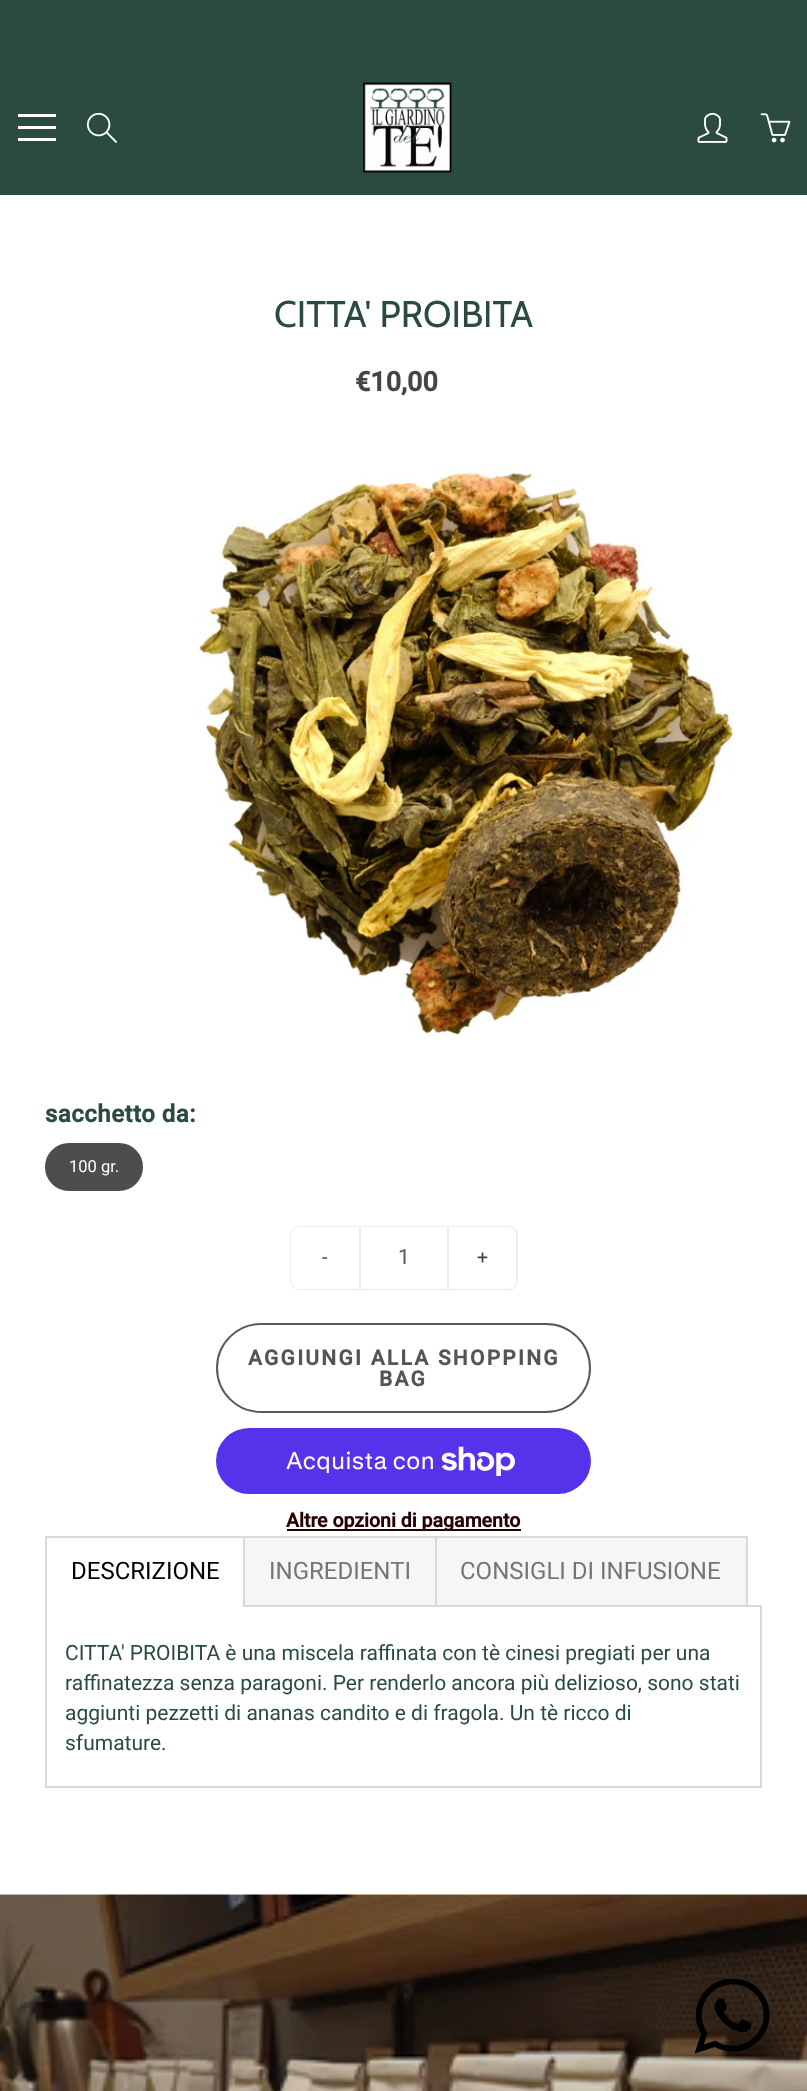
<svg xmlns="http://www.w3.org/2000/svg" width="807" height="2091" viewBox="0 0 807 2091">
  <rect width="100%" height="100%" fill="#ffffff"/>
  <rect x="0" y="0" width="807" height="195" fill="#2b4b3f"/>
  <rect x="18" y="126" width="38" height="3" fill="#ffffff"/>
  <rect x="18" y="114" width="38" height="3" fill="#ffffff"/>
  <rect x="18" y="138" width="38" height="3" fill="#ffffff"/>
  <image x="86" y="112" width="31" height="31" href="img1.png"/>
  <image x="363" y="82" width="89" height="91" href="img2.png"/>
  <image x="697" y="112" width="31" height="31" href="img3.png"/>
  <image x="760" y="113" width="31" height="30" href="img4.png"/>
  <text x="274" y="327" font-family="Cabin" font-size="37" fill="#2b4b3f">CITTA' PROIBITA</text>
  <text x="355" y="391" font-family="Roboto" font-size="27" font-weight="bold" fill="#454545">€10,00</text>
  <image x="197" y="468" width="538" height="567" href="img5.png"/>
  <text x="45" y="1122" font-family="Roboto" font-size="24" font-weight="bold" letter-spacing="0.5" fill="#2b4b3f">sacchetto da:</text>
  <rect x="46" y="1144" width="96" height="46" rx="23" fill="#4d4d4d" stroke="#4d4d4d" stroke-width="2"/>
  <text x="69" y="1172" font-family="Roboto" font-size="16.5" fill="#ffffff">100 gr.</text>
  <rect x="291" y="1227" width="226" height="62" rx="8" fill="none" stroke="#ededed" stroke-width="2"/>
  <path d="M299 1227H359V1289H299C294.5 1289 291 1285.5 291 1281V1235C291 1230.5 294.5 1227 299 1227Z" fill="#ffffff"/>
  <text x="322" y="1264" font-family="Roboto" font-size="19.5" fill="#454545">-</text>
  <rect x="361" y="1227" width="86" height="62" fill="#ffffff"/>
  <rect x="447" y="1227" width="2" height="62" fill="#ededed"/>
  <rect x="359" y="1227" width="2" height="62" fill="#ededed"/>
  <text x="398" y="1264" font-family="Roboto" font-size="21" fill="#555555">1</text>
  <path d="M449 1227H508C512.5 1227 516 1230.5 516 1235V1281C516 1285.5 512.5 1289 508 1289H449Z" fill="#ffffff"/>
  <text x="477" y="1264" font-family="Roboto" font-size="19.5" fill="#454545">+</text>
  <rect x="217" y="1324" width="373" height="88" rx="44" fill="none" stroke="#595959" stroke-width="2"/>
  <text x="248" y="1365" font-family="Roboto" font-size="21" font-weight="bold" letter-spacing="2.25" fill="#555555">AGGIUNGI ALLA SHOPPING</text>
  <text x="379" y="1386" font-family="Roboto" font-size="21" font-weight="bold" letter-spacing="2.25" fill="#555555">BAG</text>
  <rect x="216" y="1428" width="375" height="66" rx="33" fill="#5433eb"/>
  <text x="286" y="1469" font-family="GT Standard" font-size="24" fill="#ffffff">Acquista con</text>
  <image x="441" y="1446" width="74" height="30" href="img6.png"/>
  <rect x="287" y="1529" width="234" height="2" fill="#270000"/>
  <text x="286" y="1527" font-family="Roboto" font-size="19.5" font-weight="bold" fill="#270000">Altre opzioni di pagamento</text>
  <rect x="45" y="1536" width="702" height="2" fill="#d9d9d9"/>
  <rect x="243" y="1536" width="2" height="71" fill="#d9d9d9"/>
  <rect x="746" y="1536" width="2" height="71" fill="#d9d9d9"/>
  <rect x="435" y="1536" width="2" height="71" fill="#d9d9d9"/>
  <rect x="46" y="1606" width="715" height="181" fill="none" stroke="#d9d9d9" stroke-width="2"/>
  <rect x="47" y="1605" width="196" height="2" fill="#ffffff"/>
  <rect x="45" y="1536" width="2" height="71" fill="#d9d9d9"/>
  <text x="71" y="1579" font-family="Roboto" font-size="24" fill="#000000">DESCRIZIONE</text>
  <rect x="245" y="1538" width="190" height="67" fill="#f6f6f7"/>
  <text x="269" y="1579" font-family="Roboto" font-size="24" fill="#757575">INGREDIENTI</text>
  <rect x="437" y="1538" width="309" height="67" fill="#f6f6f7"/>
  <text x="460" y="1579" font-family="Roboto" font-size="24" fill="#757575">CONSIGLI DI INFUSIONE</text>
  <text x="65" y="1660" font-family="Roboto" font-size="21" fill="#2b4b3f">CITTA' PROIBITA è una miscela raffinata con tè cinesi pregiati per una</text>
  <text x="65" y="1690" font-family="Roboto" font-size="21" fill="#2b4b3f">raffinatezza senza paragoni. Per renderlo ancora più delizioso, sono stati</text>
  <text x="65" y="1720" font-family="Roboto" font-size="21" fill="#2b4b3f">aggiunti pezzetti di ananas candito e di fragola. Un tè ricco di</text>
  <text x="65" y="1750" font-family="Roboto" font-size="21" fill="#2b4b3f">sfumature.</text>
  <image x="0" y="1894" width="807" height="197" href="img7.png"/>
  <image x="695" y="1979" width="75" height="75" href="img8.png"/>
</svg>
